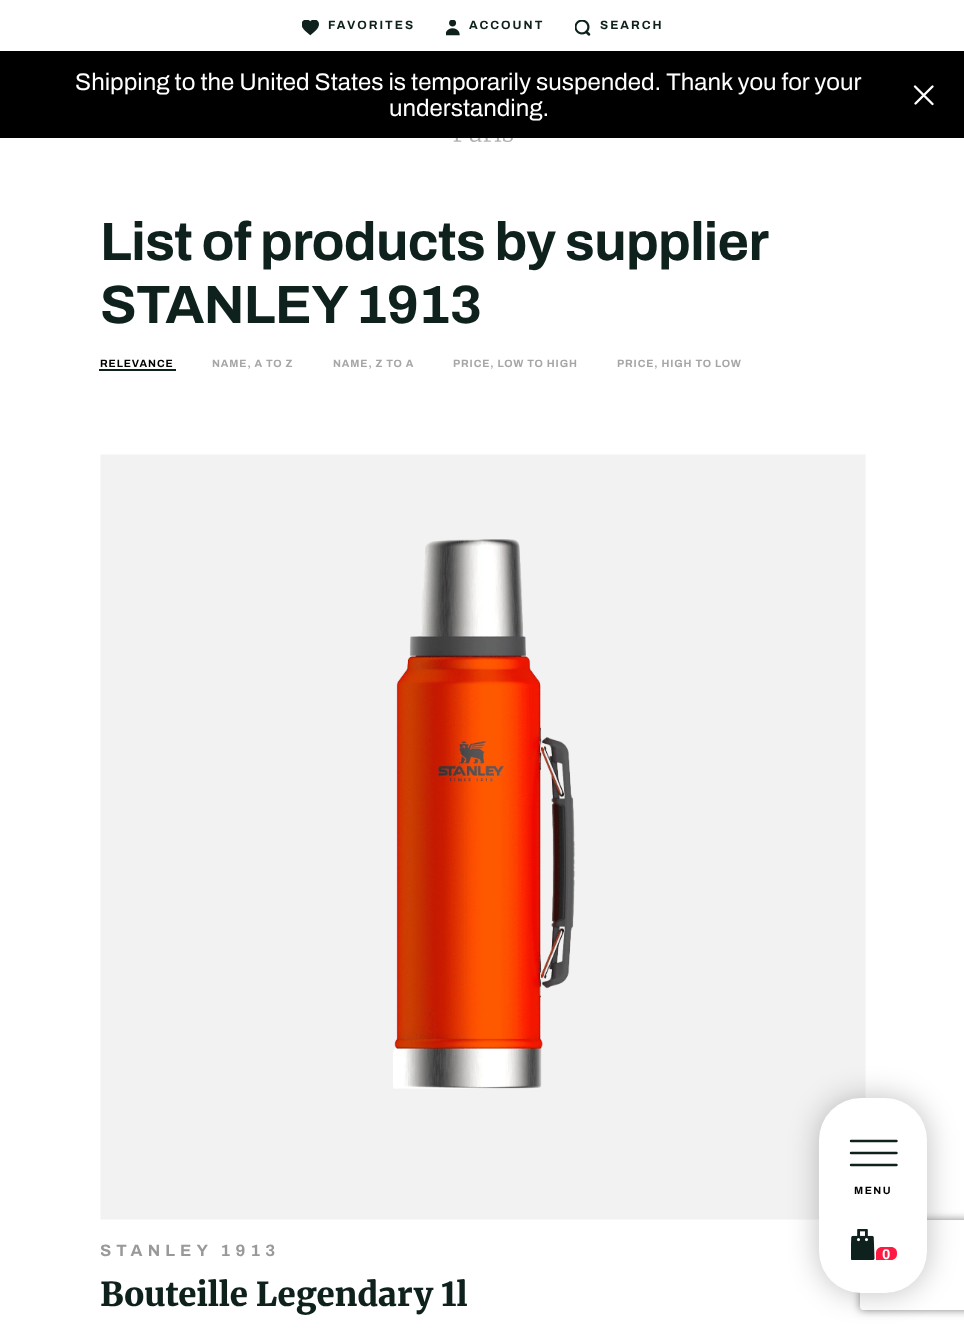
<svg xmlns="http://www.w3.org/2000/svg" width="964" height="1330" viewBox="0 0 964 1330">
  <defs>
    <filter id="blur1" x="-50%" y="-200%" width="200%" height="500%"><feGaussianBlur stdDeviation="15"/></filter>
    <clipPath id="clip1"><path d="M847 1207H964V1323H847ZM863 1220H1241C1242.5 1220 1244 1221.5 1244 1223V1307C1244 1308.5 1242.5 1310 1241 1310H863C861.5 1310 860 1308.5 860 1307V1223C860 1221.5 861.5 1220 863 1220Z" clip-rule="evenodd"/></clipPath>
    <filter id="blur2" x="-50%" y="-200%" width="200%" height="500%"><feGaussianBlur stdDeviation="4"/></filter>
    <clipPath id="clip2"><rect x="101" y="1242" width="765" height="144"/></clipPath>
  </defs>
  <rect width="100%" height="100%" fill="#ffffff"/>
  <image x="100" y="454" width="766" height="766" href="img6.png"/>
  <rect x="819" y="1098" width="108" height="195" rx="42" fill="#000000" fill-opacity="0.25" filter="url(#blur1)"/>
  <g clip-path="url(#clip1)">
    <rect x="860" y="1220" width="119" height="90" rx="3" fill="#808080" filter="url(#blur2)"/>
  </g>
  <rect x="819" y="1098" width="108" height="195" rx="42" fill="#ffffff"/>
  <image x="302" y="20" width="17" height="16" href="img1.png"/>
  <text x="328" y="29" font-family="Archivo" font-size="12" font-weight="bold" letter-spacing="2" fill="#0e211d">FAVORITES</text>
  <image x="446" y="20" width="14" height="16" href="img2.png"/>
  <text x="469" y="29" font-family="Archivo" font-size="12" font-weight="bold" letter-spacing="2" fill="#0e211d">ACCOUNT</text>
  <image x="575" y="20" width="16" height="16" href="img3.png"/>
  <text x="600" y="29" font-family="Archivo" font-size="12" font-weight="bold" letter-spacing="2" fill="#0e211d">SEARCH</text>
  <path d="M851 1153H896.5M851 1165H896.5M851 1141H896.5" fill="none" stroke="#0e211d" stroke-width="2.4" stroke-linecap="round"/>
  <text x="854" y="1194" font-family="Archivo" font-size="10.5" font-weight="bold" letter-spacing="1.5" fill="#000000">MENU</text>
  <image x="851" y="1229" width="24" height="31" href="img4.png"/>
  <path d="M882 1247H891C894.5 1247 897 1249.5 897 1253V1254C897 1257.5 894.5 1260 891 1260H876V1253C876 1249.5 878.5 1247 882 1247Z" fill="#ff1a41"/>
  <text x="882" y="1259" font-family="Archivo" font-size="14" font-weight="bold" letter-spacing="-1" fill="#ffffff">0</text>
  <rect x="0" y="51" width="964" height="87" fill="#000000"/>
  <text x="75" y="90" font-family="Archivo" font-size="24" fill="#ffffff">Shipping to the United States is temporarily suspended. Thank you for your</text>
  <text x="389" y="116" font-family="Archivo" font-size="24" fill="#ffffff">understanding.</text>
  <path d="M932.5 86.5L915.5 103.5M915 86.5L932.5 104" fill="none" stroke="#ffffff" stroke-width="2.4" stroke-linecap="round"/>
  <image x="453" y="138" width="60" height="4" href="img5.png"/>
  <text x="100" y="260" word-spacing="-0.5" font-family="Archivo" font-size="54" font-weight="bold" letter-spacing="-0.7" fill="#0e211d">List of products by supplier</text>
  <text x="100" y="323" font-family="Archivo" font-size="54" font-weight="bold" letter-spacing="-0.7" fill="#0e211d">STANLEY 1913</text>
  <text x="100" y="367" font-family="Archivo" font-size="10.5" font-weight="bold" letter-spacing="0.9" fill="#000000">RELEVANCE</text>
  <rect x="99" y="369" width="77" height="2" fill="#0e211d"/>
  <text x="212" y="367" font-family="Archivo" font-size="10.5" font-weight="bold" letter-spacing="0.9" fill="#a6a6a6">NAME, A TO Z</text>
  <text x="333" y="367" font-family="Archivo" font-size="10.5" font-weight="bold" letter-spacing="0.9" fill="#a6a6a6">NAME, Z TO A</text>
  <text x="453" y="367" font-family="Archivo" font-size="10.5" font-weight="bold" letter-spacing="0.9" fill="#a6a6a6">PRICE, LOW TO HIGH</text>
  <text x="617" y="367" font-family="Archivo" font-size="10.5" font-weight="bold" letter-spacing="0.9" fill="#a6a6a6">PRICE, HIGH TO LOW</text>
  <g clip-path="url(#clip2)">
    <text x="100" y="1256" font-family="Archivo" font-size="16.5" font-weight="bold" letter-spacing="5.1" fill="#999999">STANLEY 1913</text>
  </g>
  <text x="100" y="1306" font-family="Merriweather" font-size="33" font-weight="900" fill="#0e211d">Bouteille Legendary 1l</text>
</svg>
